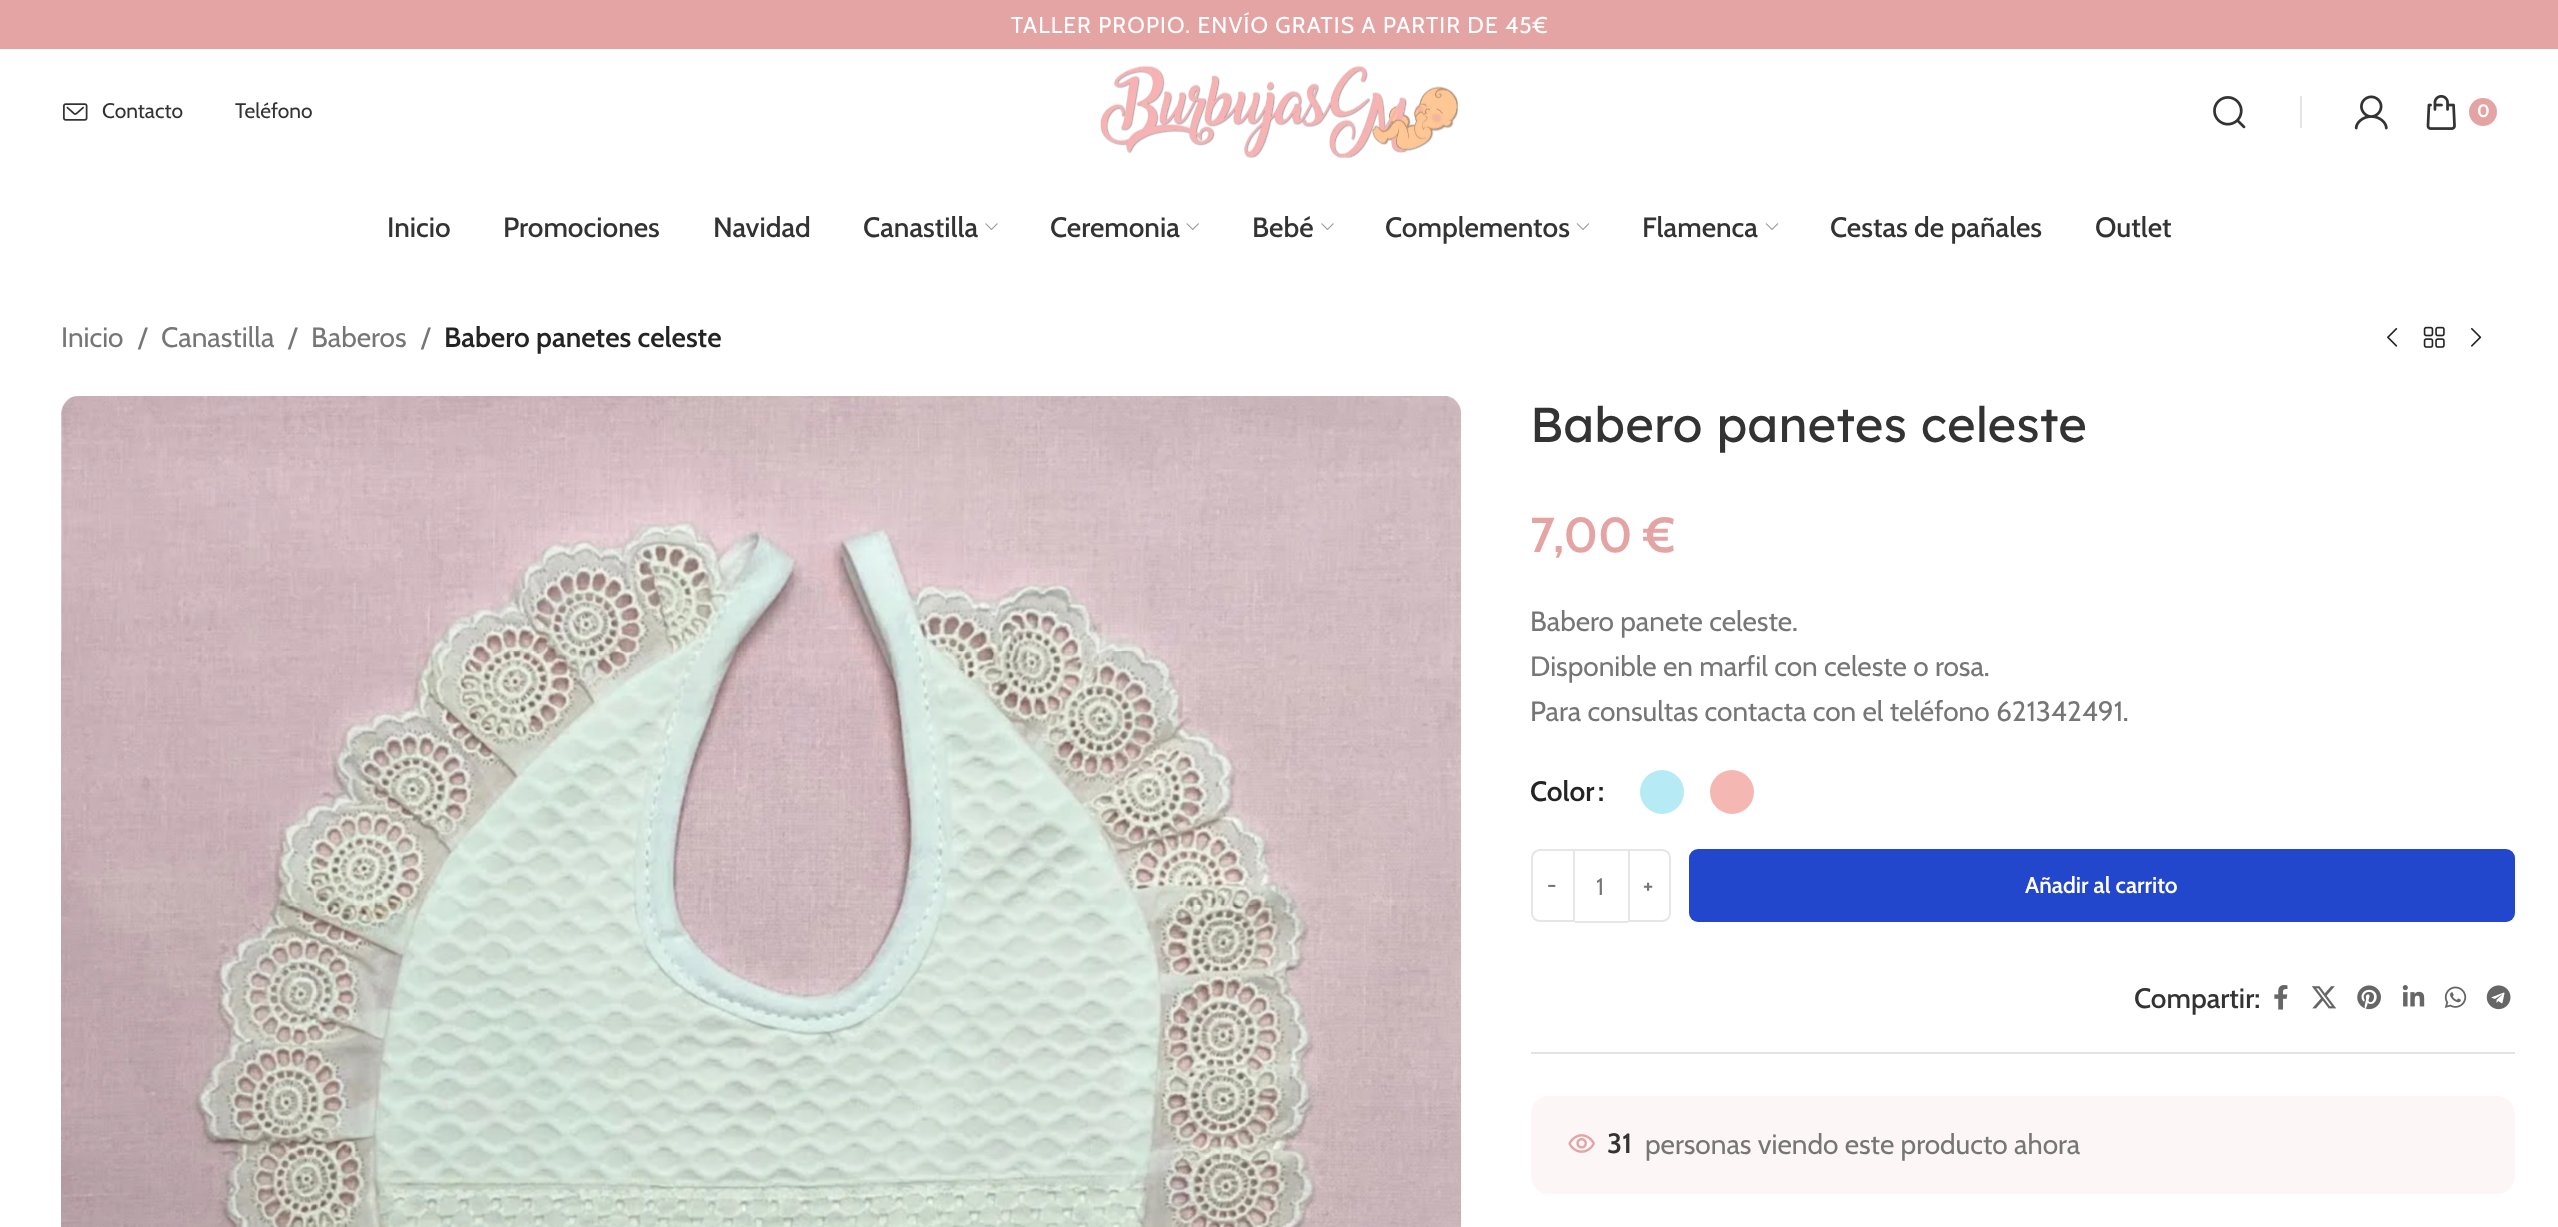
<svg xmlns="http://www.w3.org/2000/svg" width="2558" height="1227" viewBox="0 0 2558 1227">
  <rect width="100%" height="100%" fill="#ffffff"/>
  <rect x="0" y="0" width="2558" height="49" fill="#e4a4a4"/>
  <text x="1011" y="33" font-family="Cabin" font-size="22.75" letter-spacing="1.15" fill="#ffffff">TALLER PROPIO. ENVÍO GRATIS A PARTIR DE 45€</text>
  <image x="63" y="103" width="25" height="18" href="img1.png"/>
  <text x="102" y="118" font-family="Cabin" font-size="21" fill="#333333">Contacto</text>
  <text x="235" y="118" font-family="Cabin" font-size="21" fill="#333333">Teléfono</text>
  <image x="1100" y="65" width="358" height="93" href="img2.png"/>
  <image x="2213" y="96" width="33" height="33" href="img3.png"/>
  <rect x="2300" y="96" width="2" height="32" fill="#e4e4e4"/>
  <image x="2354" y="95" width="34" height="35" href="img4.png"/>
  <image x="2426" y="94" width="30" height="36" href="img5.png"/>
  <circle cx="2483" cy="112" r="14" fill="#e4a4a4"/>
  <text x="2477" y="117" font-family="Cabin" font-size="18" font-weight="bold" fill="#ffffff">0</text>
  <text x="387" y="237" font-family="Cabin" font-size="28" font-weight="500" fill="#333333">Inicio</text>
  <text x="503" y="237" font-family="Cabin" font-size="28" font-weight="500" fill="#333333">Promociones</text>
  <text x="713" y="237" font-family="Cabin" font-size="28" font-weight="500" fill="#333333">Navidad</text>
  <text x="863" y="237" font-family="Cabin" font-size="28" font-weight="500" fill="#333333">Canastilla</text>
  <image x="985" y="223" width="13" height="7" href="img6.png"/>
  <text x="1050" y="237" font-family="Cabin" font-size="28" font-weight="500" fill="#333333">Ceremonia</text>
  <image x="1186" y="223" width="13" height="7" href="img7.png"/>
  <text x="1252" y="237" font-family="Cabin" font-size="28" font-weight="500" fill="#333333">Bebé</text>
  <image x="1321" y="223" width="13" height="7" href="img6.png"/>
  <text x="1385" y="237" font-family="Cabin" font-size="28" font-weight="500" fill="#333333">Complementos</text>
  <image x="1576" y="223" width="14" height="7" href="img8.png"/>
  <text x="1642" y="237" font-family="Cabin" font-size="28" font-weight="500" fill="#333333">Flamenca</text>
  <image x="1765" y="223" width="14" height="7" href="img8.png"/>
  <text x="1830" y="237" font-family="Cabin" font-size="28" font-weight="500" fill="#333333">Cestas de pañales</text>
  <text x="2095" y="237" font-family="Cabin" font-size="28" font-weight="500" fill="#333333">Outlet</text>
  <text x="61" y="347" font-family="Cabin" font-size="28" fill="#767676">Inicio</text>
  <text x="138" y="347" font-family="Cabin" font-size="28" fill="#767676">/</text>
  <text x="161" y="347" font-family="Cabin" font-size="28" fill="#767676">Canastilla</text>
  <text x="288" y="347" font-family="Cabin" font-size="28" fill="#767676">/</text>
  <text x="311" y="347" font-family="Cabin" font-size="28" fill="#767676">Baberos</text>
  <text x="421" y="347" font-family="Cabin" font-size="28" fill="#767676">/</text>
  <text x="444" y="347" font-family="Cabin" font-size="28" font-weight="600" fill="#242424">Babero panetes celeste</text>
  <image x="2387" y="328" width="11" height="19" href="img9.png"/>
  <image x="2423" y="326" width="22" height="22" href="img10.png"/>
  <image x="2471" y="328" width="11" height="19" href="img11.png"/>
  <image x="61" y="396" width="1400" height="831" href="img12.png"/>
  <text x="1530" y="442" font-family="Lexend" font-size="49" fill="#333333">Babero panetes celeste</text>
  <text x="1530" y="552" font-family="Cabin" font-size="49" font-weight="600" fill="#e4a4a4">7,00 €</text>
  <text x="1530" y="631" font-family="Cabin" font-size="28" fill="#767676">Babero panete celeste.</text>
  <text x="1530" y="676" font-family="Cabin" font-size="28" fill="#767676">Disponible en marfil con celeste o rosa.</text>
  <text x="1530" y="721" font-family="Cabin" font-size="28" fill="#767676">Para consultas contacta con el teléfono 621342491.</text>
  <text x="1530" y="801" font-family="Cabin" font-size="28" font-weight="600" fill="#242424">Color</text>
  <text x="1598" y="801" font-family="Cabin" font-size="28" font-weight="600" fill="#242424">:</text>
  <circle cx="1662" cy="792" r="22" fill="#b6ebf5"/>
  <circle cx="1732" cy="792" r="22" fill="#f5b7b1"/>
  <path d="M1540 850H1574V921H1540C1535.5 921 1532 917.5 1532 913V858C1532 853.5 1535.5 850 1540 850Z" fill="none" stroke="#e6e6e6" stroke-width="2"/>
  <text x="1547" y="893" font-family="Cabin" font-size="22.75" font-weight="600" fill="#767676">-</text>
  <rect x="1575" y="849" width="53" height="2" fill="#e6e6e6"/>
  <rect x="1575" y="921" width="53" height="2" fill="#e6e6e6"/>
  <text x="1596" y="895" font-family="Cabin" font-size="24" fill="#767676">1</text>
  <path d="M1629 850H1662C1666.5 850 1670 853.5 1670 858V913C1670 917.5 1666.5 921 1662 921H1629Z" fill="none" stroke="#e6e6e6" stroke-width="2"/>
  <text x="1643" y="893" font-family="Cabin" font-size="22.75" font-weight="600" fill="#767676">+</text>
  <rect x="1689" y="849" width="826" height="73" rx="9" fill="#2247cc"/>
  <text x="2025" y="893" font-family="Cabin" font-size="22.75" font-weight="600" fill="#ffffff">Añadir al carrito</text>
  <text x="2134" y="1008" font-family="Cabin" font-size="28" font-weight="500" fill="#333333">Compartir:</text>
  <image x="2274" y="985" width="14" height="25" href="img13.png"/>
  <image x="2312" y="986" width="25" height="23" href="img14.png"/>
  <image x="2357" y="985" width="24" height="25" href="img15.png"/>
  <image x="2402" y="985" width="23" height="22" href="img16.png"/>
  <image x="2444" y="986" width="23" height="22" href="img17.png"/>
  <image x="2486" y="985" width="25" height="25" href="img18.png"/>
  <rect x="1531" y="1052" width="984" height="2" fill="#e3e3e3"/>
  <image x="1568" y="1134" width="27" height="19" href="img19.png"/>
  <rect x="1531" y="1096" width="984" height="98" rx="18" fill="#e4a4a4" fill-opacity="0.1"/>
  <text x="1607" y="1153" font-family="Cabin" font-size="28" font-weight="600" fill="#333333">31</text>
  <text x="1645" y="1154" font-family="Cabin" font-size="28" fill="#767676">personas viendo este producto ahora</text>
</svg>
